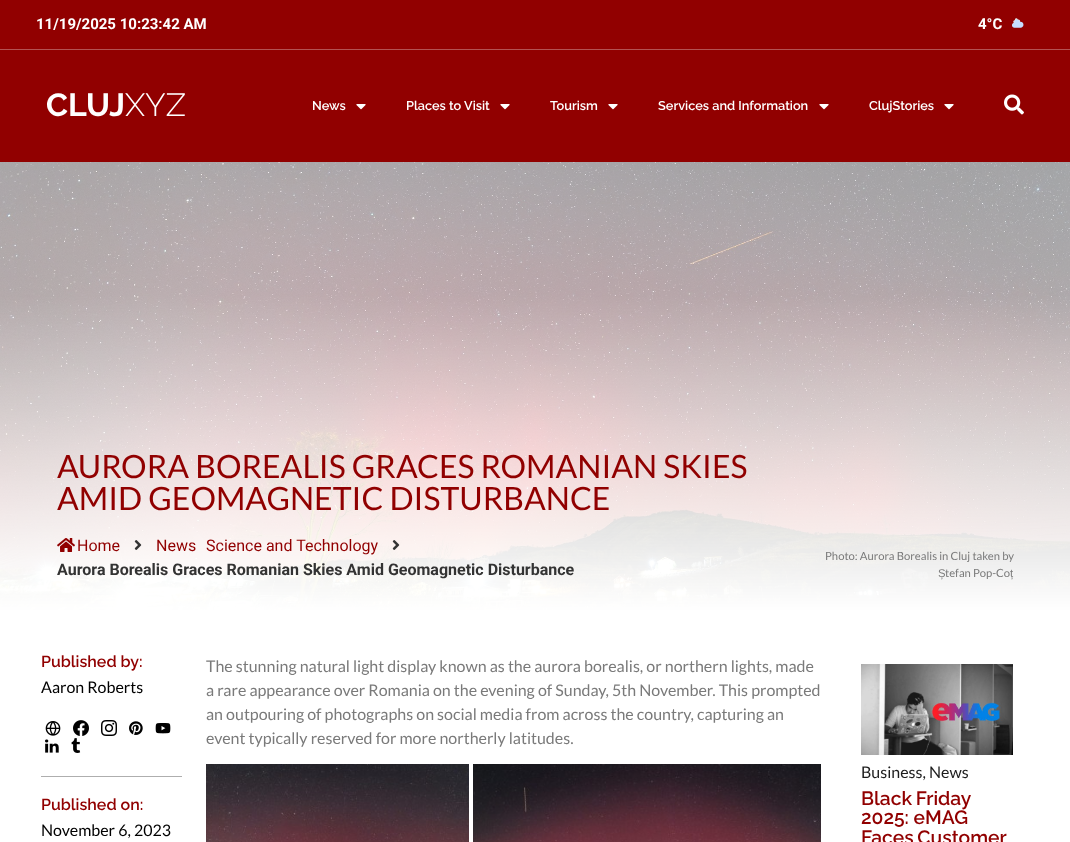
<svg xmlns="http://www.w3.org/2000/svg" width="1070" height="842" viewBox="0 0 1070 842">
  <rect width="100%" height="100%" fill="#ffffff"/>
  <rect x="0" y="0" width="1070" height="49" fill="#910000"/>
  <rect x="0" y="49" width="1070" height="1" fill="#b45252"/>
  <text x="36" y="29" font-family="Roboto" font-size="15" font-weight="bold" fill="#ffffff">11/19/2025 10:23:42 AM</text>
  <text x="978" y="29" font-family="Roboto" font-size="15" font-weight="bold" fill="#ffffff">4°C</text>
  <image x="1012" y="18" width="12" height="10" href="img1.png"/>
  <rect x="0" y="50" width="1070" height="112" fill="#910000"/>
  <text x="46" y="116" font-family="Raleway" font-size="32" font-weight="bold" fill="#ffffff">CLUJ</text>
  <text x="125" y="116" font-family="Raleway" font-size="32" font-weight="300" fill="#ffffff">XYZ</text>
  <text x="312" y="110" font-family="Raleway" font-size="12.75" font-weight="600" fill="#ffffff">News</text>
  <image x="356" y="104" width="10" height="6" href="img2.png"/>
  <text x="406" y="110" font-family="Raleway" font-size="12.75" font-weight="600" fill="#ffffff">Places to Visit</text>
  <image x="500" y="104" width="10" height="6" href="img2.png"/>
  <text x="550" y="110" font-family="Raleway" font-size="12.75" font-weight="600" fill="#ffffff">Tourism</text>
  <image x="608" y="104" width="10" height="6" href="img2.png"/>
  <text x="658" y="110" font-family="Raleway" font-size="12.75" font-weight="600" fill="#ffffff">Services and Information</text>
  <image x="819" y="104" width="10" height="6" href="img2.png"/>
  <text x="869" y="110" font-family="Raleway" font-size="12.75" font-weight="600" fill="#ffffff">ClujStories</text>
  <image x="944" y="104" width="10" height="6" href="img2.png"/>
  <image x="1004" y="94" width="20" height="21" href="img3.png"/>
  <image x="0" y="162" width="1070" height="450" href="img4.png"/>
  <text x="57" y="478" font-family="Lato" font-size="32" fill="#910000">AURORA BOREALIS GRACES ROMANIAN SKIES</text>
  <text x="57" y="510" font-family="Lato" font-size="32" fill="#910000">AMID GEOMAGNETIC DISTURBANCE</text>
  <image x="57" y="538" width="18" height="14" href="img5.png"/>
  <text x="77" y="551" font-family="Roboto" font-size="16" fill="#910000">Home</text>
  <image x="134" y="540" width="8" height="10" href="img6.png"/>
  <text x="156" y="551" font-family="Roboto" font-size="16" fill="#910000">News</text>
  <text x="206" y="551" font-family="Roboto" font-size="16" fill="#910000">Science and Technology</text>
  <image x="392" y="540" width="8" height="10" href="img7.png"/>
  <text x="57" y="575" font-family="Roboto" font-size="16" font-weight="bold" fill="#333333">Aurora Borealis Graces Romanian Skies Amid Geomagnetic Disturbance</text>
  <text x="825" y="560" font-family="Lato" font-size="11.25" fill="#7a7a7a">Photo: Aurora Borealis in Cluj taken by</text>
  <text x="938" y="577" font-family="Liberation Sans" font-size="11.25" fill="#7a7a7a">Ș</text>
  <text x="945" y="577" font-family="Lato" font-size="11.25" fill="#7a7a7a">tefan Pop-Co</text>
  <text x="1010" y="577" font-family="Liberation Sans" font-size="11.25" fill="#7a7a7a">ț</text>
  <text x="41" y="667" font-family="Raleway" font-size="16" font-weight="600" fill="#910000">Published by:</text>
  <text x="41" y="693" font-family="Lato" font-size="16" fill="#000000">Aaron Roberts</text>
  <image x="45" y="721" width="16" height="15" href="img8.png"/>
  <image x="73" y="720" width="16" height="16" href="img9.png"/>
  <image x="101" y="720" width="16" height="16" href="img10.png"/>
  <image x="129" y="721" width="14" height="14" href="img11.png"/>
  <image x="155" y="723" width="16" height="11" href="img12.png"/>
  <image x="45" y="739" width="14" height="14" href="img13.png"/>
  <image x="71" y="738" width="10" height="15" href="img14.png"/>
  <rect x="41" y="776" width="141" height="1" fill="#aeaeae"/>
  <text x="41" y="810" font-family="Raleway" font-size="16" font-weight="600" fill="#910000">Published on:</text>
  <text x="41" y="836" font-family="Lato" font-size="16" fill="#000000">November 6, 2023</text>
  <text x="206" y="672" font-family="Lato" font-size="16" fill="#7a7a7a">The stunning natural light display known as the aurora borealis, or northern lights, made</text>
  <text x="206" y="696" font-family="Lato" font-size="16" fill="#7a7a7a">a rare appearance over Romania on the evening of Sunday, 5th November. This prompted</text>
  <text x="206" y="720" font-family="Lato" font-size="16" fill="#7a7a7a">an outpouring of photographs on social media from across the country, capturing an</text>
  <text x="206" y="744" font-family="Lato" font-size="16" fill="#7a7a7a">event typically reserved for more northerly latitudes.</text>
  <image x="206" y="764" width="263" height="78" href="img15.png"/>
  <image x="473" y="764" width="348" height="78" href="img16.png"/>
  <image x="861" y="664" width="152" height="91" href="img17.png"/>
  <text x="861" y="778" font-family="Lato" font-size="16" fill="#1d1d1d">Business, News</text>
  <text x="861" y="805" word-spacing="-1" font-family="Raleway" font-size="19.25" font-weight="600" fill="#910000">Black Friday</text>
  <text x="861" y="824" font-family="Raleway" font-size="19.25" font-weight="600" fill="#910000">2025: eMAG</text>
  <text x="861" y="844" word-spacing="-1" font-family="Raleway" font-size="19.25" font-weight="600" fill="#910000">Faces Customer</text>
</svg>
